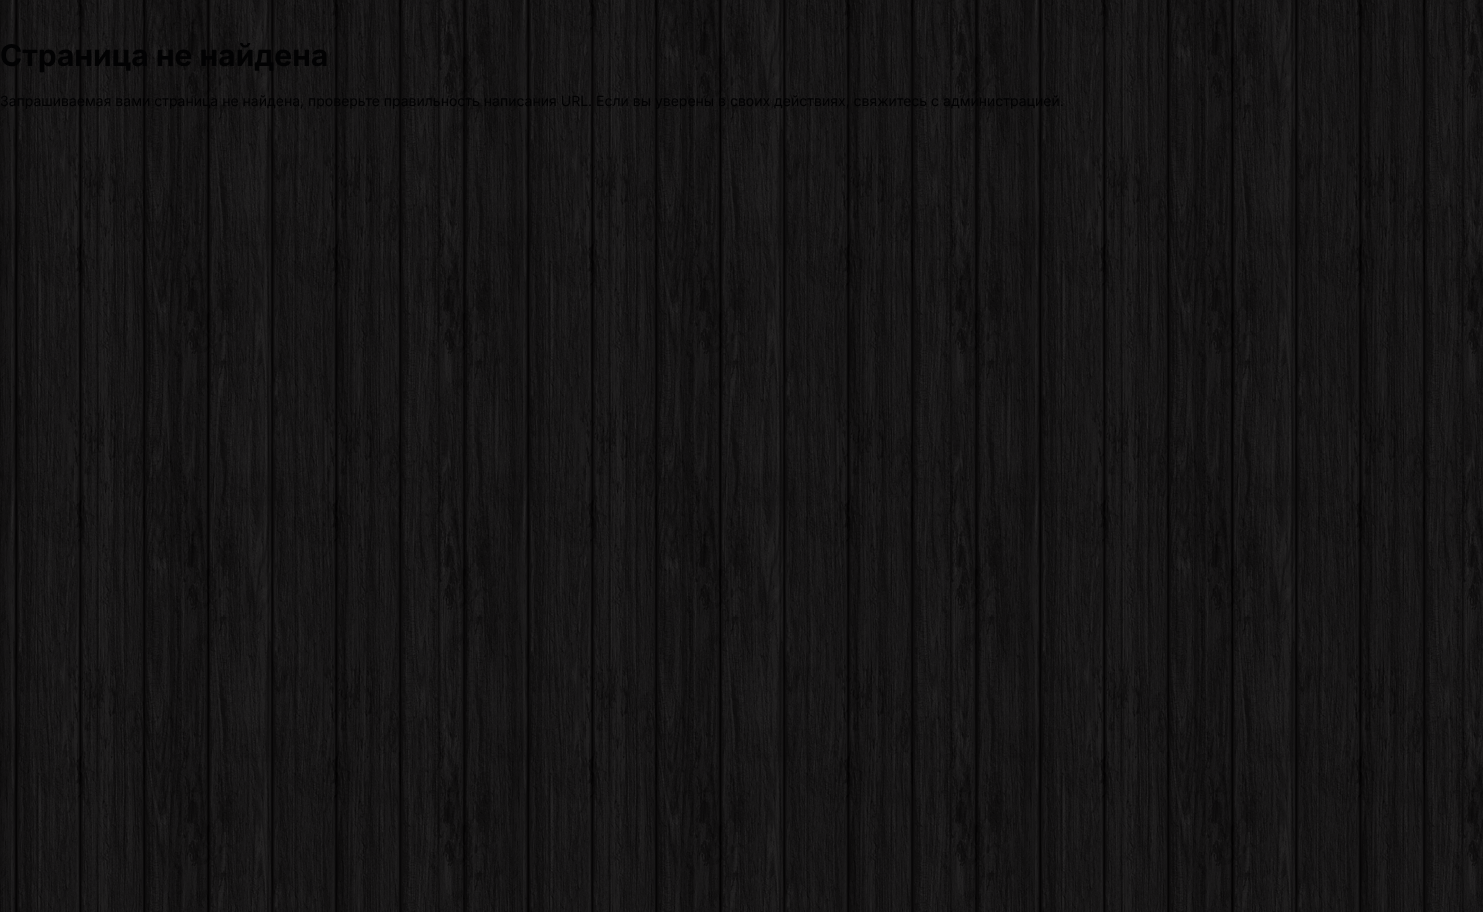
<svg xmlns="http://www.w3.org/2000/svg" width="1483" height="912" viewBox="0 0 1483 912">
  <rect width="100%" height="100%" fill="#ffffff"/>
  <image x="0" y="0" width="1483" height="912" href="img1.png"/>
  <text x="0" y="66" font-family="Inter" font-size="30" font-weight="bold" fill="#020203">Страница не найдена</text>
  <text x="0" y="106" font-family="Inter" font-size="14" fill="#020203">Запрашиваемая вами страница не найдена, проверьте правильность написания URL. Если вы уверены в своих действиях, свяжитесь с администрацией.</text>
</svg>
